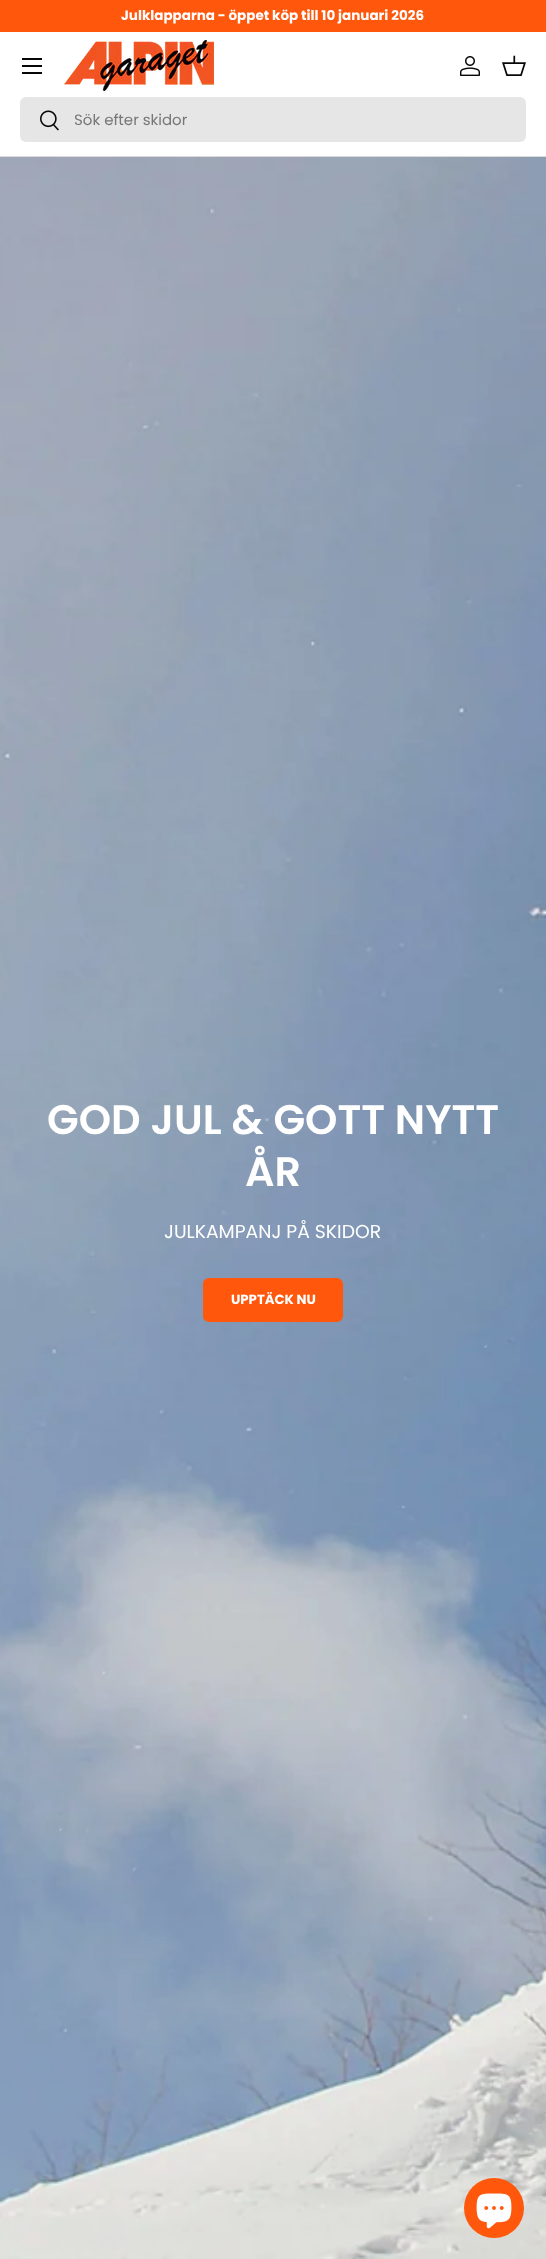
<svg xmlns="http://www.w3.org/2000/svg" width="546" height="2259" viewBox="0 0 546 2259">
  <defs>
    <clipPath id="clip1"><rect x="203" y="1278" width="140" height="44" rx="6"/></clipPath>
    <linearGradient id="g1" gradientUnits="userSpaceOnUse" x1="-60" y1="1251" x2="334" y2="1349"><stop offset="0.6" stop-color="#ff7c40"/><stop offset="0.6" stop-color="#ff580d"/><stop offset="1" stop-color="#ff580d"/></linearGradient>
  </defs>
  <rect width="100%" height="100%" fill="#ffffff"/>
  <rect x="0" y="0" width="546" height="32" fill="#ff580d"/>
  <text x="121" y="20" font-family="Poppins" font-size="13.5" font-weight="bold" fill="#ffffff">Julklapparna - öppet köp till 10 januari 2026</text>
  <rect x="0" y="156" width="546" height="1" fill="#dadada"/>
  <rect x="22" y="58" width="20" height="2" fill="#070707"/>
  <rect x="22" y="72" width="20" height="2" fill="#070707"/>
  <rect x="22" y="65" width="20" height="2" fill="#070707"/>
  <image x="64" y="40" width="150" height="51" href="img1.png"/>
  <image x="460" y="56" width="20" height="20" href="img2.png"/>
  <image x="502" y="55" width="24" height="21" href="img3.png"/>
  <rect x="20" y="97" width="506" height="45" rx="6" fill="#e6e6e6"/>
  <image x="40" y="110" width="19" height="21" href="img4.png"/>
  <text x="74" y="125" font-family="Poppins" font-size="15" fill="#777777">Sök efter skidor</text>
  <image x="0" y="157" width="546" height="2102" href="img5.png"/>
  <text x="47" y="1134" font-family="Poppins" font-size="41.25" font-weight="600" fill="#ffffff">GOD JUL &amp; GOTT NYTT</text>
  <text x="245" y="1186" font-family="Poppins" font-size="41.25" font-weight="600" fill="#ffffff">ÅR</text>
  <text x="164" y="1238" font-family="Poppins" font-size="18.75" fill="#ffffff">JULKAMPANJ PÅ SKIDOR</text>
  <g clip-path="url(#clip1)">
    <rect x="203" y="1280" width="138" height="40" fill="url(#g1)"/>
  </g>
  <rect x="204" y="1279" width="138" height="42" rx="5" fill="none" stroke="#ff580d" stroke-width="2"/>
  <text x="231" y="1304" font-family="Poppins" font-size="13.25" font-weight="bold" fill="#ffffff">UPPTÄCK NU</text>
  <circle cx="494" cy="2208" r="30" fill="#ff580d"/>
  <image x="476" y="2193" width="36" height="36" href="img6.png"/>
</svg>
